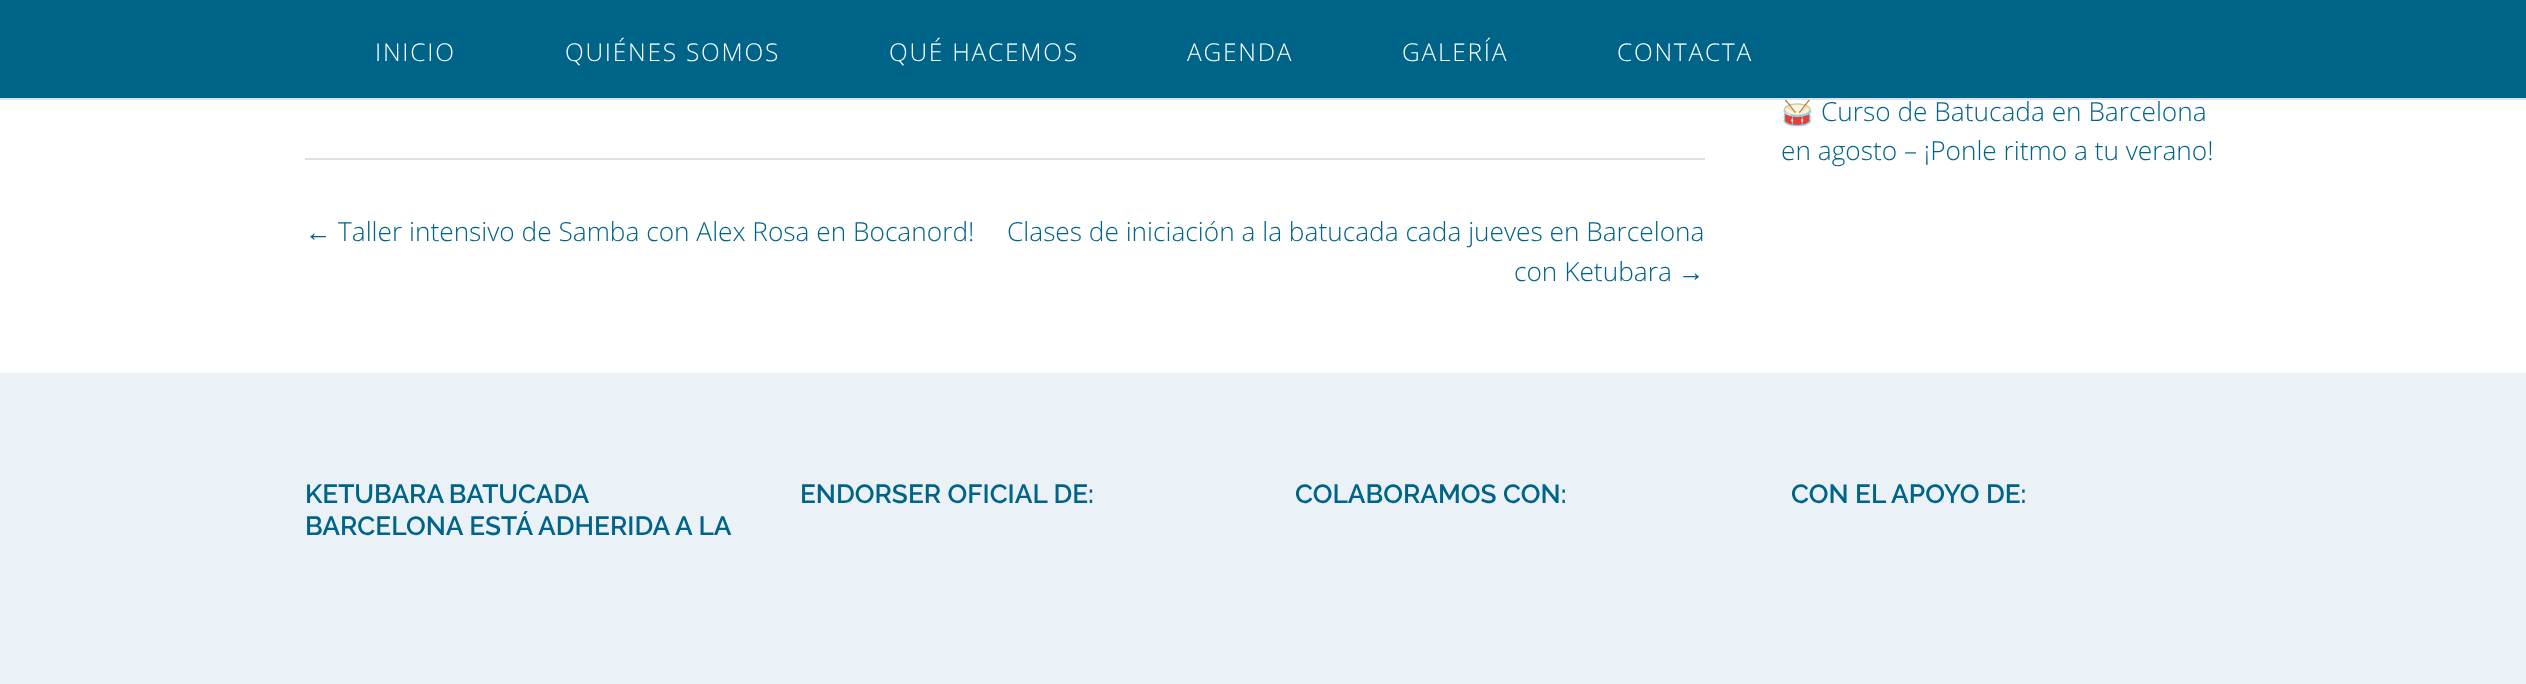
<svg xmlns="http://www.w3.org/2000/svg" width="2526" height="684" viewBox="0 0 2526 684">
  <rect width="100%" height="100%" fill="#ffffff"/>
  <rect x="0" y="0" width="2526" height="98" fill="#006489"/>
  <text x="1781" y="121" font-family="Noto Color Emoji" font-size="26.25" fill="#006489">🥁</text>
  <rect x="0" y="98" width="2526" height="2" fill="#dee2e6"/>
  <text x="375" y="61" font-family="Open Sans" font-size="24.5" font-weight="300" letter-spacing="1.75" fill="#ffffff">INICIO</text>
  <text x="565" y="61" font-family="Open Sans" font-size="24.5" font-weight="300" letter-spacing="1.75" fill="#ffffff">QUIÉNES SOMOS</text>
  <text x="889" y="61" font-family="Open Sans" font-size="24.5" font-weight="300" letter-spacing="1.75" fill="#ffffff">QUÉ HACEMOS</text>
  <text x="1187" y="61" font-family="Open Sans" font-size="24.5" font-weight="300" letter-spacing="1.75" fill="#ffffff">AGENDA</text>
  <text x="1402" y="61" font-family="Open Sans" font-size="24.5" font-weight="300" letter-spacing="1.75" fill="#ffffff">GALERÍA</text>
  <text x="1617" y="61" font-family="Open Sans" font-size="24.5" font-weight="300" letter-spacing="1.75" fill="#ffffff">CONTACTA</text>
  <text x="1821" y="121" font-family="Open Sans" font-size="26.25" font-weight="300" fill="#006489">Curso de Batucada en Barcelona</text>
  <text x="1781" y="160" font-family="Open Sans" font-size="26.25" font-weight="300" fill="#006489">en agosto – ¡Ponle ritmo a tu verano!</text>
  <rect x="305" y="158" width="1400" height="2" fill="#e0e0e0"/>
  <text x="305" y="241" font-family="Liberation Sans" font-size="26.25" fill="#006489">←</text>
  <text x="338" y="241" font-family="Open Sans" font-size="26.25" font-weight="300" fill="#006489">Taller intensivo de Samba con Alex Rosa en Bocanord!</text>
  <text x="1007" y="241" font-family="Open Sans" font-size="26.25" font-weight="300" fill="#006489">Clases de iniciación a la batucada cada jueves en Barcelona</text>
  <text x="1514" y="281" font-family="Open Sans" font-size="26.25" font-weight="300" fill="#006489">con Ketubara</text>
  <text x="1678" y="281" font-family="Liberation Sans" font-size="26.25" fill="#006489">→</text>
  <rect x="0" y="373" width="2526" height="311" fill="#eaf1f7"/>
  <text x="305" y="503" word-spacing="-1" font-family="Raleway" font-size="26.25" font-weight="600" fill="#006489">KETUBARA BATUCADA</text>
  <text x="305" y="535" font-family="Raleway" font-size="26.25" font-weight="600" fill="#006489">BARCELONA ESTÁ ADHERIDA A LA</text>
  <text x="800" y="503" font-family="Raleway" font-size="26.25" font-weight="600" fill="#006489">ENDORSER OFICIAL DE:</text>
  <text x="1295" y="503" font-family="Raleway" font-size="26.25" font-weight="600" fill="#006489">COLABORAMOS CON:</text>
  <text x="1791" y="503" font-family="Raleway" font-size="26.25" font-weight="600" fill="#006489">CON EL APOYO DE:</text>
</svg>
